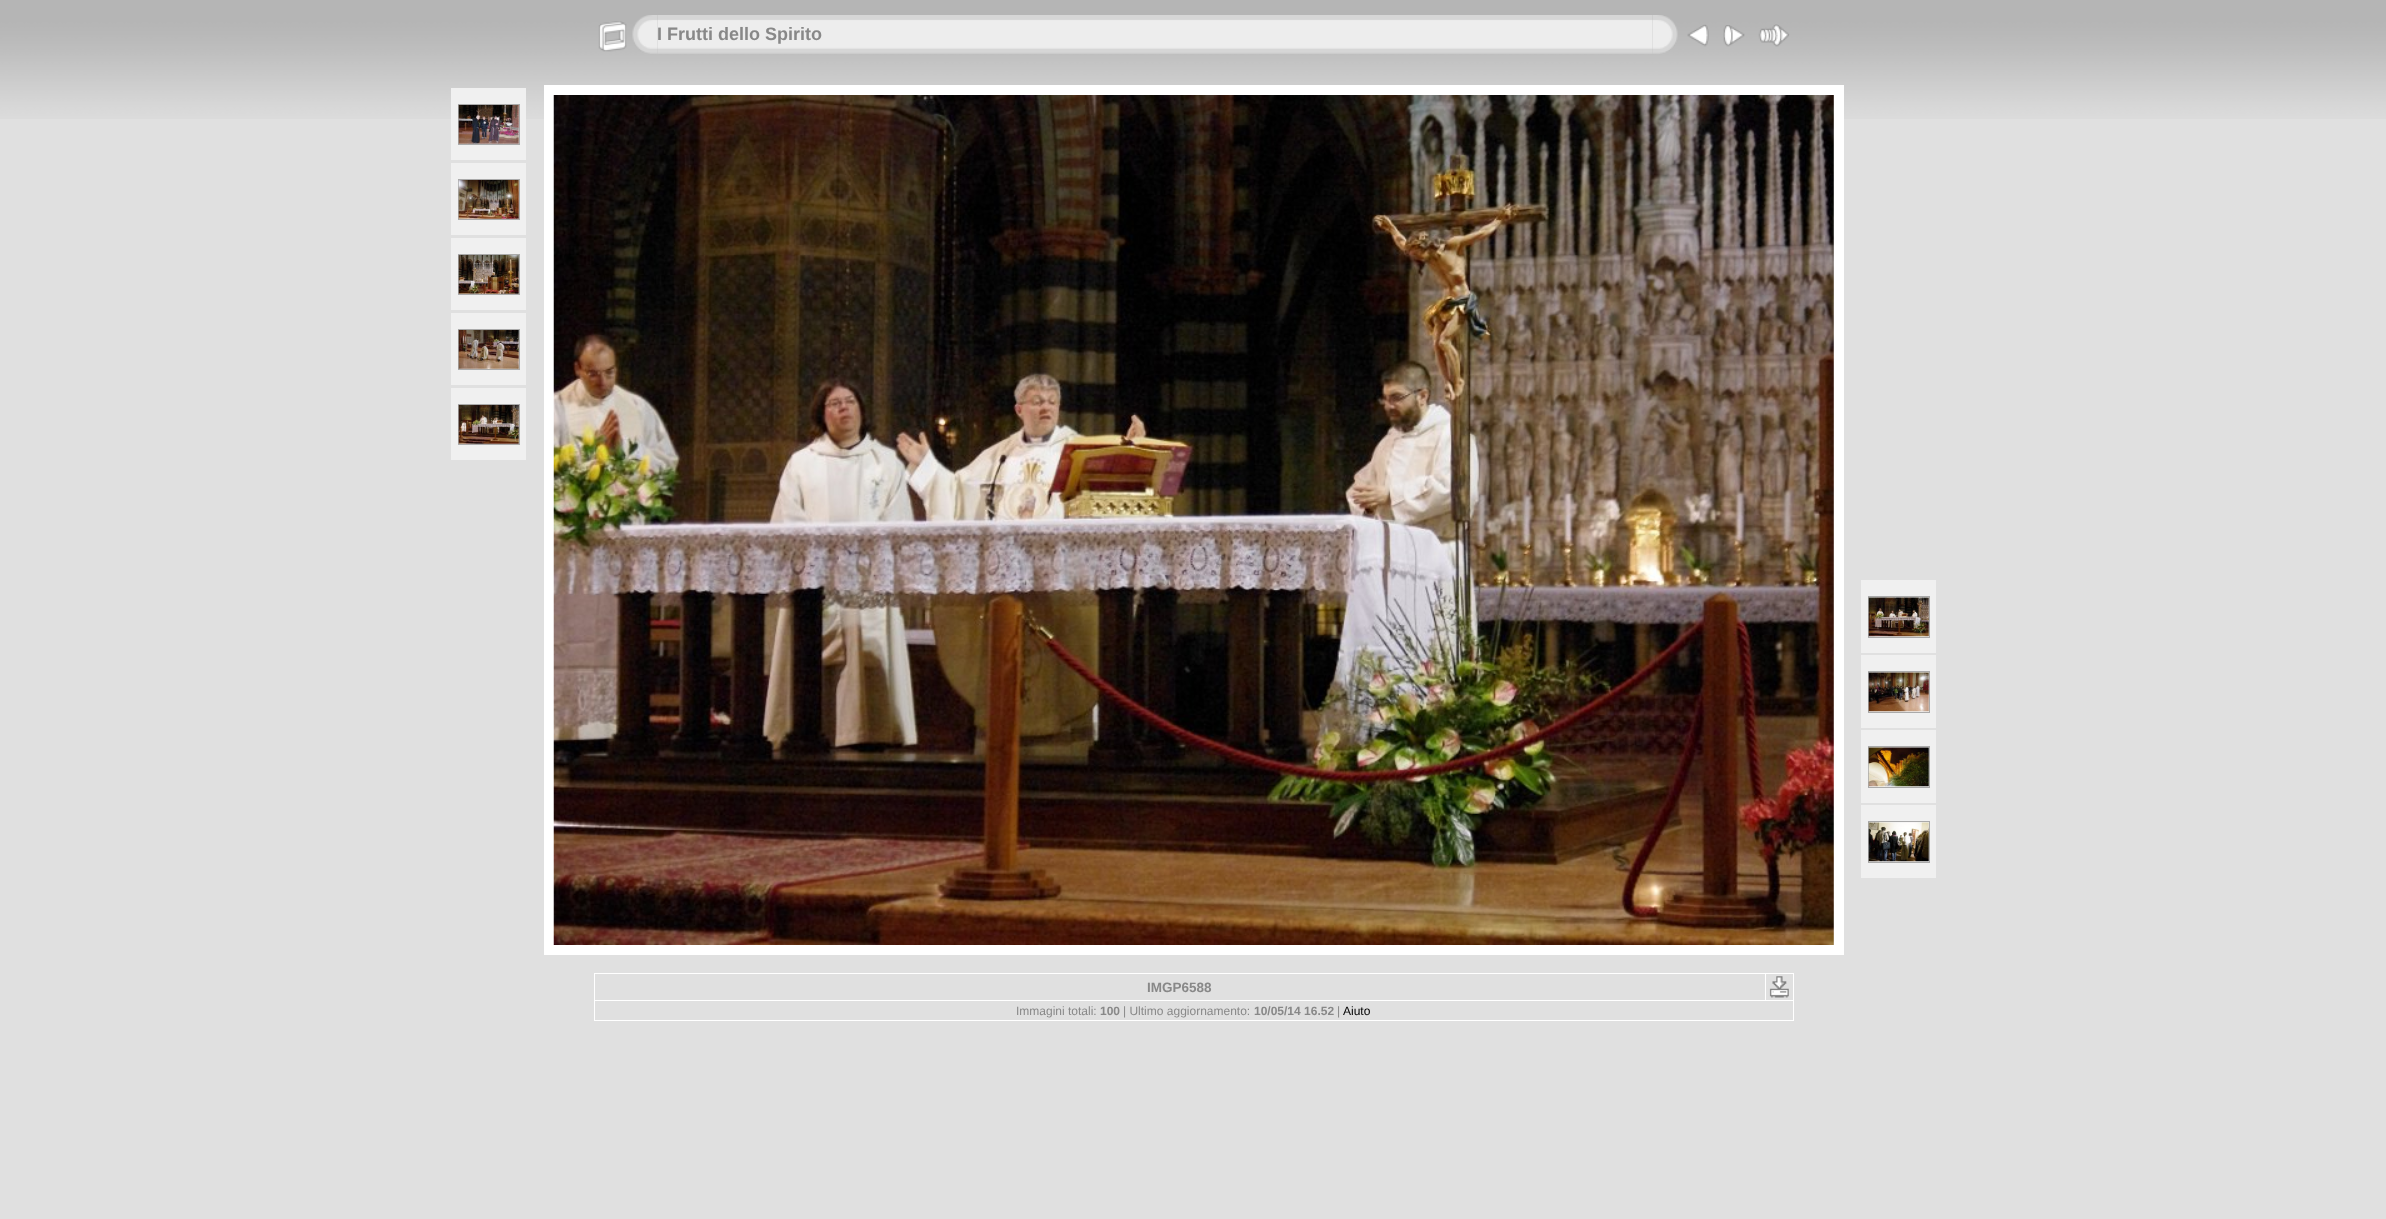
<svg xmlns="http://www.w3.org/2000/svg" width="2386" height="1219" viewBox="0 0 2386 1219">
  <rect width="100%" height="100%" fill="#e0e0e0"/>
  <image x="0" y="0" width="2386" height="119" href="img1.png"/>
  <image x="598" y="21" width="29" height="31" href="img2.png"/>
  <image x="657" y="15" width="996" height="39" href="img4.png"/>
  <image x="632" y="15" width="26" height="39" href="img3.png"/>
  <text x="657" y="40" font-family="Liberation Sans" font-size="18" font-weight="bold" fill="#888888">I Frutti dello Spirito</text>
  <image x="1652" y="15" width="26" height="39" href="img5.png"/>
  <image x="1687" y="24" width="22" height="23" href="img6.png"/>
  <image x="1723" y="25" width="22" height="22" href="img7.png"/>
  <image x="1758" y="24" width="32" height="23" href="img8.png"/>
  <rect x="451" y="88" width="75" height="72" fill="#f0f0f0"/>
  <rect x="458.5" y="104.5" width="61" height="40" fill="none" stroke="#aaaaaa"/>
  <image x="458" y="105" width="61" height="39" href="img9.png"/>
  <rect x="451" y="163" width="75" height="72" fill="#f0f0f0"/>
  <rect x="458.5" y="179.5" width="61" height="40" fill="none" stroke="#aaaaaa"/>
  <image x="458" y="180" width="61" height="39" href="img10.png"/>
  <rect x="451" y="238" width="75" height="72" fill="#f0f0f0"/>
  <rect x="458.5" y="254.5" width="61" height="40" fill="none" stroke="#aaaaaa"/>
  <image x="458" y="255" width="61" height="39" href="img11.png"/>
  <rect x="451" y="313" width="75" height="72" fill="#f0f0f0"/>
  <rect x="458.5" y="329.5" width="61" height="40" fill="none" stroke="#aaaaaa"/>
  <image x="458" y="330" width="61" height="39" href="img12.png"/>
  <rect x="451" y="388" width="75" height="72" fill="#f0f0f0"/>
  <rect x="458.5" y="404.5" width="61" height="40" fill="none" stroke="#aaaaaa"/>
  <image x="458" y="405" width="61" height="39" href="img13.png"/>
  <rect x="549" y="90" width="1290" height="860" fill="none" stroke="#ffffff" stroke-width="10"/>
  <image x="553" y="95" width="1281" height="850" href="img14.png"/>
  <rect x="1861" y="580" width="75" height="73" fill="#f0f0f0"/>
  <rect x="1868.5" y="596.5" width="61" height="41" fill="none" stroke="#aaaaaa"/>
  <image x="1868" y="597" width="61" height="40" href="img15.png"/>
  <rect x="1861" y="655" width="75" height="73" fill="#f0f0f0"/>
  <rect x="1868.5" y="671.5" width="61" height="41" fill="none" stroke="#aaaaaa"/>
  <image x="1868" y="672" width="61" height="40" href="img16.png"/>
  <rect x="1861" y="730" width="75" height="73" fill="#f0f0f0"/>
  <rect x="1868.5" y="746.5" width="61" height="41" fill="none" stroke="#aaaaaa"/>
  <image x="1868" y="747" width="61" height="40" href="img17.png"/>
  <rect x="1861" y="805" width="75" height="73" fill="#f0f0f0"/>
  <rect x="1868.5" y="821.5" width="61" height="41" fill="none" stroke="#aaaaaa"/>
  <image x="1868" y="822" width="61" height="40" href="img18.png"/>
  <rect x="594" y="973" width="1200" height="1" fill="#ffffff"/>
  <rect x="1793" y="973" width="1" height="48" fill="#ffffff"/>
  <rect x="594" y="1020" width="1200" height="1" fill="#ffffff"/>
  <rect x="594" y="973" width="1" height="48" fill="#ffffff"/>
  <text x="1147" y="992" font-family="Liberation Sans" font-size="13.5" font-weight="bold" fill="#888888">IMGP6588</text>
  <rect x="594" y="1000" width="1200" height="1" fill="#ffffff"/>
  <rect x="1765" y="973" width="1" height="28" fill="#ffffff"/>
  <image x="1769" y="976" width="20" height="22" href="img19.png"/>
  <text x="1016" y="1015" font-family="Liberation Sans" font-size="12" fill="#888888">Immagini totali:</text>
  <text x="1100" y="1015" font-family="Liberation Sans" font-size="12" font-weight="bold" fill="#888888">100</text>
  <text x="1123" y="1015" font-family="Liberation Sans" font-size="12" fill="#888888">| Ultimo aggiornamento:</text>
  <text x="1254" y="1015" font-family="Liberation Sans" font-size="12" font-weight="bold" fill="#888888">10/05/14 16.52</text>
  <text x="1337" y="1015" font-family="Liberation Sans" font-size="12" fill="#888888">|</text>
  <text x="1343" y="1015" font-family="Liberation Sans" font-size="12" fill="#000000">Aiuto</text>
</svg>
